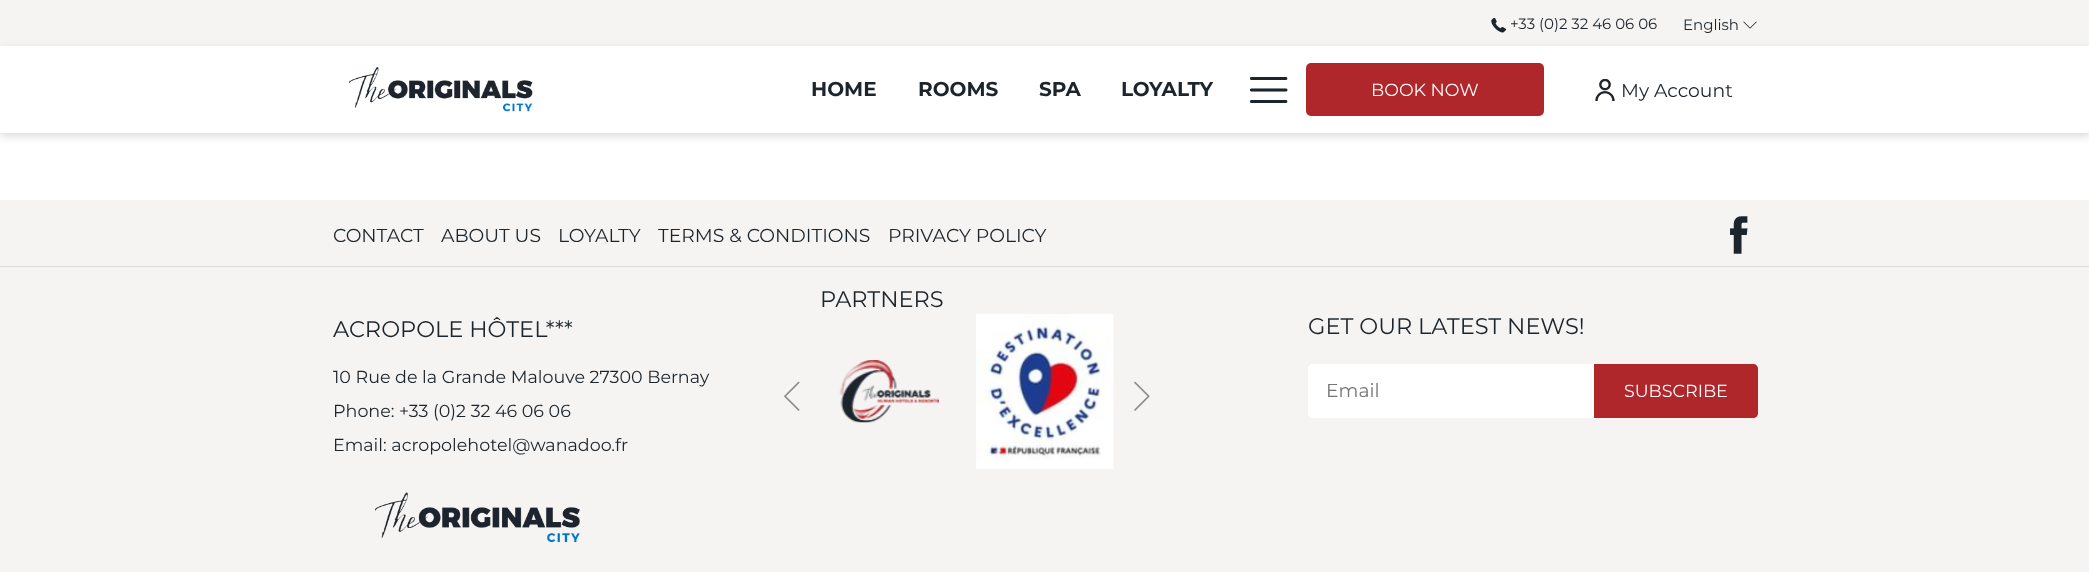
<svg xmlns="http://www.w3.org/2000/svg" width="2089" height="572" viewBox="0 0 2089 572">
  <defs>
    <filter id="blur1" x="-50%" y="-200%" width="200%" height="500%"><feGaussianBlur stdDeviation="4"/></filter>
  </defs>
  <rect width="100%" height="100%" fill="#ffffff"/>
  <rect x="0" y="0" width="2089" height="46" fill="#f5f4f3"/>
  <image x="1491" y="18" width="15" height="15" href="img1.png"/>
  <text x="1510" y="29" font-family="Montserrat" font-size="15" fill="#1d252c">+33 (0)2 32 46 06 06</text>
  <text x="1683" y="30" font-family="Montserrat" font-size="15" fill="#1d252c">English</text>
  <image x="1743" y="21" width="14" height="8" href="img2.png"/>
  <rect x="0" y="50" width="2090" height="86" fill="#000000" fill-opacity="0.15" filter="url(#blur1)"/>
  <rect x="0" y="46" width="2089" height="87" fill="#ffffff"/>
  <image x="348" y="67" width="185" height="45" href="img3.png"/>
  <text x="811" y="96" font-family="Montserrat" font-size="20" font-weight="bold" fill="#1d252c">HOME</text>
  <text x="918" y="96" font-family="Montserrat" font-size="20" font-weight="bold" fill="#1d252c">ROOMS</text>
  <text x="1039" y="96" font-family="Montserrat" font-size="20" font-weight="bold" fill="#1d252c">SPA</text>
  <text x="1121" y="96" font-family="Montserrat" font-size="20" font-weight="bold" fill="#1d252c">LOYALTY</text>
  <image x="1250" y="77" width="38" height="26" href="img4.png"/>
  <rect x="1306" y="63" width="238" height="53" rx="5" fill="#b0272b"/>
  <text x="1371" y="96" font-family="Montserrat" font-size="17.5" fill="#fafafa">BOOK NOW</text>
  <image x="1595" y="79" width="20" height="22" href="img5.png"/>
  <text x="1621" y="97" font-family="Montserrat" font-size="18.75" fill="#1d252c">My Account</text>
  <rect x="0" y="200" width="2089" height="372" fill="#f5f4f3"/>
  <rect x="0" y="266" width="2089" height="1" fill="#dddcdb"/>
  <text x="333" y="242" font-family="Montserrat" font-size="18.75" fill="#1d252c">CONTACT</text>
  <text x="441" y="242" font-family="Montserrat" font-size="18.75" fill="#1d252c">ABOUT US</text>
  <text x="558" y="242" font-family="Montserrat" font-size="18.75" fill="#1d252c">LOYALTY</text>
  <text x="658" y="242" font-family="Montserrat" font-size="18.75" fill="#1d252c">TERMS &amp; CONDITIONS</text>
  <text x="888" y="242" font-family="Montserrat" font-size="18.75" fill="#1d252c">PRIVACY POLICY</text>
  <image x="1730" y="216" width="18" height="38" href="img6.png"/>
  <text x="820" y="307" font-family="Montserrat" font-size="22.5" fill="#1d252c">PARTNERS</text>
  <image x="784" y="381" width="16" height="30" href="img7.png"/>
  <image x="839" y="360" width="100" height="63" href="img8.png"/>
  <image x="976" y="314" width="138" height="155" href="img9.png"/>
  <image x="1134" y="381" width="16" height="30" href="img10.png"/>
  <text x="333" y="337" font-family="Montserrat" font-size="22.5" fill="#1d252c">ACROPOLE HÔTEL***</text>
  <text x="333" y="383" font-family="Montserrat" font-size="17.5" fill="#1d252c">10 Rue de la Grande Malouve 27300 Bernay</text>
  <text x="333" y="417" font-family="Montserrat" font-size="17.5" fill="#1d252c">Phone: +33 (0)2 32 46 06 06</text>
  <text x="333" y="451" font-family="Montserrat" font-size="17.5" fill="#1d252c">Email: acropolehotel@wanadoo.fr</text>
  <image x="375" y="492" width="205" height="51" href="img11.png"/>
  <text x="1308" y="334" font-family="Montserrat" font-size="22.5" fill="#1d252c">GET OUR LATEST NEWS!</text>
  <path d="M1313 364H1594V418H1313C1310 418 1308 416 1308 413V369C1308 366 1310 364 1313 364Z" fill="#ffffff"/>
  <text x="1326" y="397" font-family="Montserrat" font-size="18.75" fill="#757575">Email</text>
  <path d="M1594 364H1753C1756 364 1758 366 1758 369V413C1758 416 1756 418 1753 418H1594Z" fill="#b0272b"/>
  <text x="1624" y="397" font-family="Montserrat" font-size="17.5" fill="#fafafa">SUBSCRIBE</text>
</svg>
